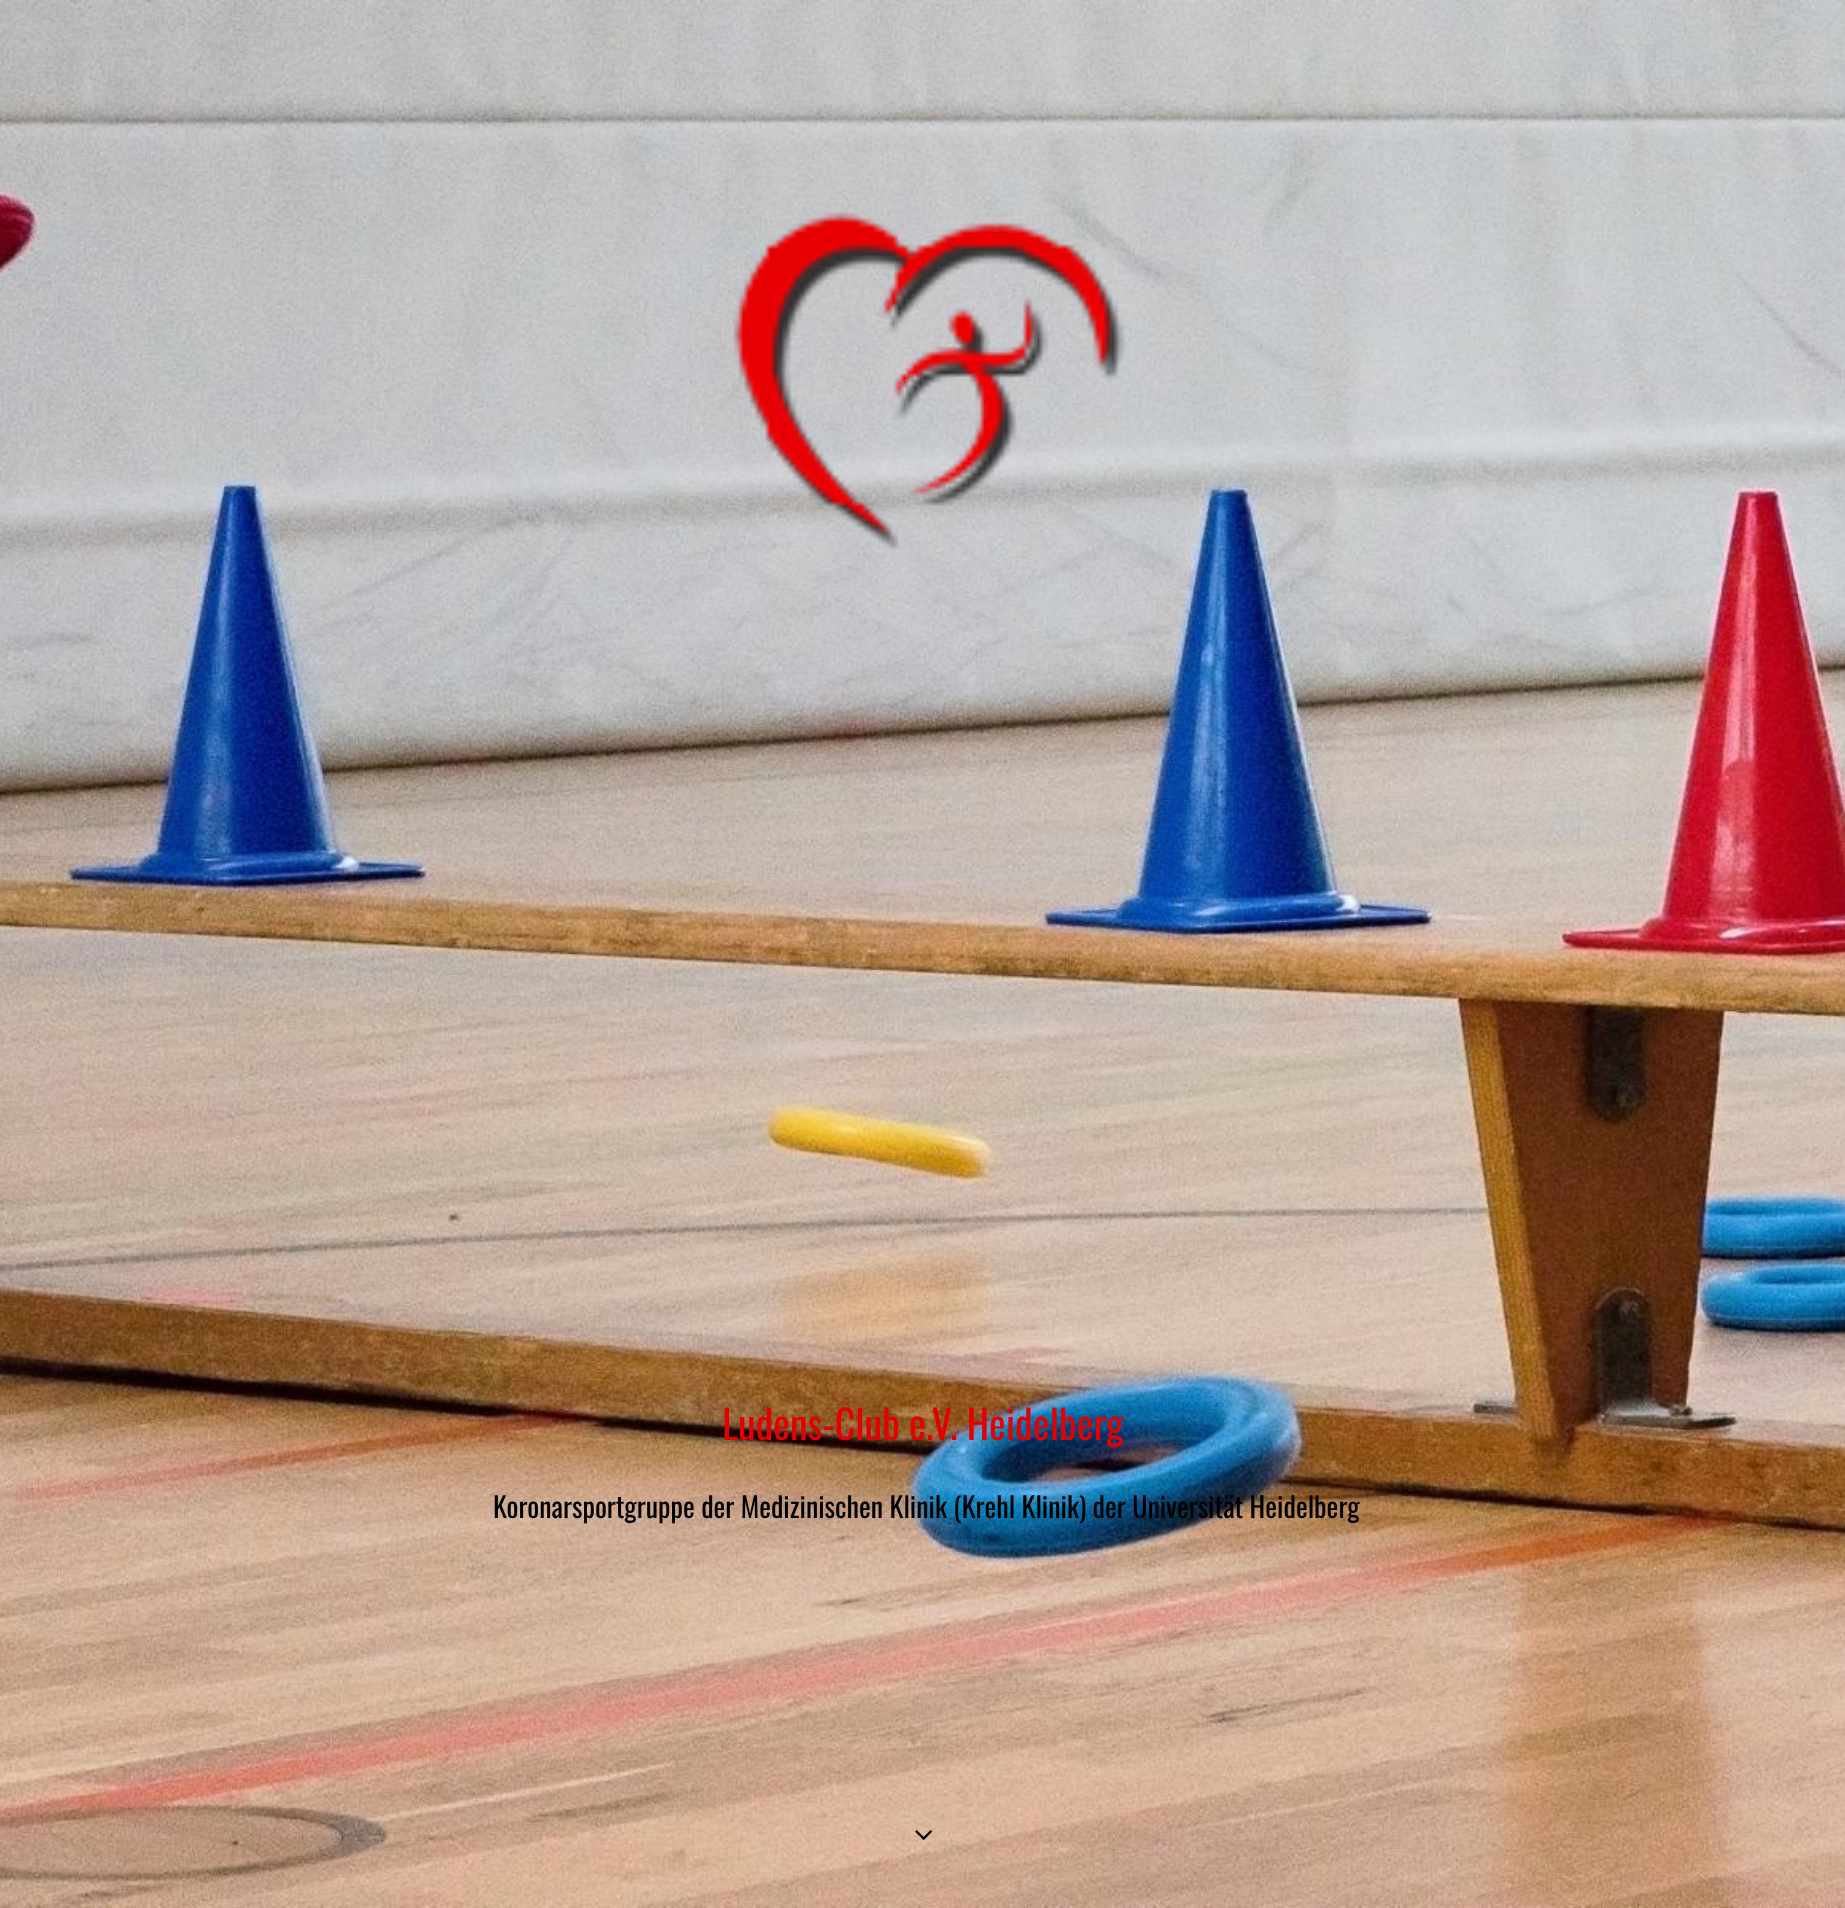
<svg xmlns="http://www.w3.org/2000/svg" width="1845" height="1908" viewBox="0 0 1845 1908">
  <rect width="100%" height="100%" fill="#ffffff"/>
  <image x="0" y="0" width="1845" height="1908" href="img1.png"/>
  <image x="733" y="212" width="393" height="337" href="img2.png"/>
  <text x="722" y="1440" font-family="Oswald" font-size="40" fill="#e40000">Ludens-Club e.V. Heidelberg</text>
  <text x="493" y="1518" font-family="Oswald" font-size="28" fill="#000000">Koronarsportgruppe der Medizinischen Klinik (Krehl Klinik) der Universität Heidelberg</text>
  <image x="915" y="1830" width="17" height="10" href="img3.png"/>
</svg>
